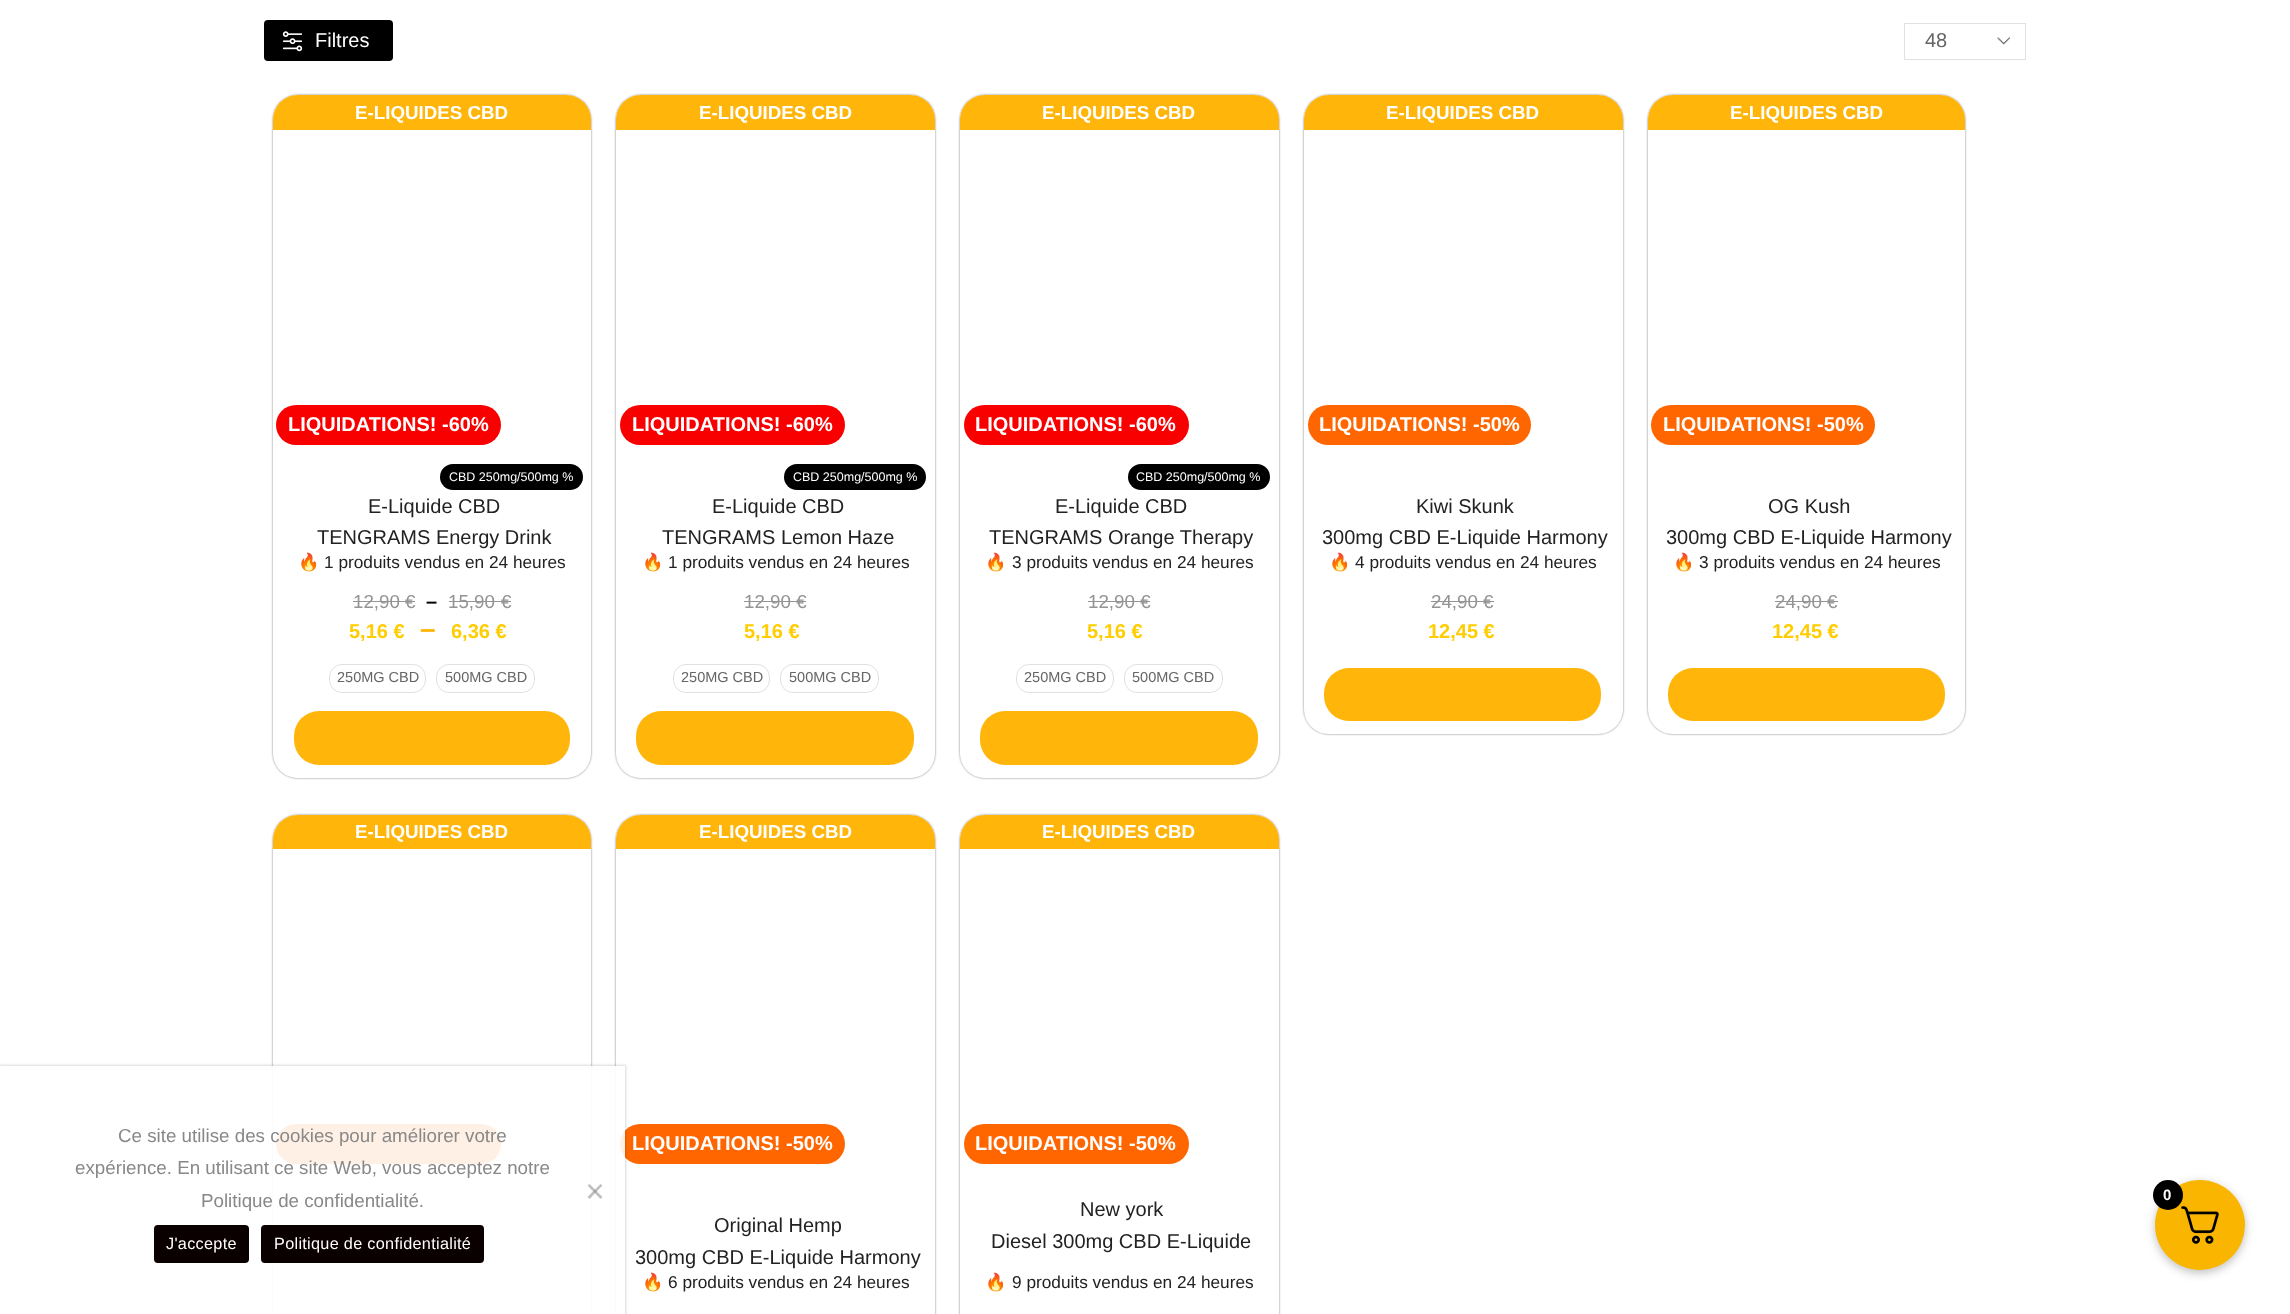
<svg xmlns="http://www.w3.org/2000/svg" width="2290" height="1314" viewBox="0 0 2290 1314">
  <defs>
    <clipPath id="clip1"><path d="M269 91H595V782H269ZM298 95H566C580 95 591 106 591 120V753C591 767 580 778 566 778H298C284 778 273 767 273 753V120C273 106 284 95 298 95Z" clip-rule="evenodd"/></clipPath>
    <filter id="blur1" x="-50%" y="-200%" width="200%" height="500%"><feGaussianBlur stdDeviation="1"/></filter>
    <clipPath id="clip2"><path d="M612 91H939V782H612ZM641 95H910C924 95 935 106 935 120V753C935 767 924 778 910 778H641C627 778 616 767 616 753V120C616 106 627 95 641 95Z" clip-rule="evenodd"/></clipPath>
    <clipPath id="clip3"><path d="M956 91H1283V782H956ZM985 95H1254C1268 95 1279 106 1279 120V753C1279 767 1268 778 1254 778H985C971 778 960 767 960 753V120C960 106 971 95 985 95Z" clip-rule="evenodd"/></clipPath>
    <clipPath id="clip4"><path d="M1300 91H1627V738H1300ZM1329 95H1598C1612 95 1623 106 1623 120V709C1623 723 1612 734 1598 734H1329C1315 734 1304 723 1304 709V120C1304 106 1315 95 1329 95Z" clip-rule="evenodd"/></clipPath>
    <clipPath id="clip5"><path d="M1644 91H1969V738H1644ZM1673 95H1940C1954 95 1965 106 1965 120V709C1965 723 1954 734 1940 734H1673C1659 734 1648 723 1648 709V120C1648 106 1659 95 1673 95Z" clip-rule="evenodd"/></clipPath>
    <clipPath id="clip6"><path d="M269 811H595V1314H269ZM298 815H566C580 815 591 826 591 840V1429C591 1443 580 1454 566 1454H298C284 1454 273 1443 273 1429V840C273 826 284 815 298 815Z" clip-rule="evenodd"/></clipPath>
    <clipPath id="clip7"><path d="M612 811H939V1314H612ZM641 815H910C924 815 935 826 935 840V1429C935 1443 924 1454 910 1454H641C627 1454 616 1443 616 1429V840C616 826 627 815 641 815Z" clip-rule="evenodd"/></clipPath>
    <clipPath id="clip8"><path d="M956 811H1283V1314H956ZM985 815H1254C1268 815 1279 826 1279 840V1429C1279 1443 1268 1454 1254 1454H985C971 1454 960 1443 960 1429V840C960 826 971 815 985 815Z" clip-rule="evenodd"/></clipPath>
    <clipPath id="clip9"><path d="M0 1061H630V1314H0ZM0 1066H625V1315H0Z" clip-rule="evenodd"/></clipPath>
    <filter id="blur2" x="-50%" y="-200%" width="200%" height="500%"><feGaussianBlur stdDeviation="5"/></filter>
  </defs>
  <rect width="100%" height="100%" fill="#ffffff"/>
  <rect x="264" y="20" width="129" height="41" rx="4" fill="#000000"/>
  <image x="282" y="31" width="21" height="21" href="img1.png"/>
  <text x="315" y="47" font-family="Liberation Sans" font-size="20" fill="#ffffff">Filtres</text>
  <image x="1997" y="37" width="13" height="8" href="img2.png"/>
  <rect x="1904.5" y="23.5" width="121" height="36" fill="none" stroke="#e1e1e1"/>
  <text x="1925" y="47" font-family="Liberation Sans" font-size="20" fill="#666666">48</text>
  <g clip-path="url(#clip1)">
    <rect x="273" y="95" width="318" height="683" rx="25" fill="#000000" fill-opacity="0.5" filter="url(#blur1)"/>
  </g>
  <path d="M298 95H566C580 95 591 106 591 120V130H273V120C273 106 284 95 298 95Z" fill="#ffb509"/>
  <text x="355" y="119" font-family="Liberation Sans" font-size="18.75" font-weight="bold" fill="#ffffff">E-LIQUIDES CBD</text>
  <rect x="276" y="405" width="225" height="40" rx="20" fill="#f90000"/>
  <text x="288" y="431" font-family="Liberation Sans" font-size="20" font-weight="bold" fill="#ffffff">LIQUIDATIONS! -60%</text>
  <rect x="440" y="464" width="143" height="26" rx="13" fill="#000000"/>
  <text x="449" y="481" font-family="Liberation Sans" font-size="12.5" fill="#ffffff">CBD 250mg/500mg %</text>
  <text x="368" y="513" font-family="Liberation Sans" font-size="20" fill="#222222">E-Liquide CBD</text>
  <text x="317" y="544" font-family="Liberation Sans" font-size="20" fill="#222222">TENGRAMS Energy Drink</text>
  <text x="298" y="568" font-family="Noto Color Emoji" font-size="17.25" fill="#222222">🔥</text>
  <text x="324" y="568" font-family="Liberation Sans" font-size="17.25" fill="#222222">1 produits vendus en 24 heures</text>
  <text x="353" y="608" font-family="Liberation Sans" font-size="18.75" fill="#959393">12,90</text>
  <rect x="353" y="601" width="52" height="1" fill="#959393"/>
  <text x="405" y="608" font-family="Liberation Sans" font-size="18.75" fill="#959393">€</text>
  <rect x="405" y="601" width="10" height="1" fill="#959393"/>
  <text x="426" y="608" font-family="Liberation Sans" font-size="20" font-weight="bold" fill="#000000">–</text>
  <text x="448" y="608" font-family="Liberation Sans" font-size="18.75" fill="#959393">15,90</text>
  <rect x="449" y="601" width="52" height="1" fill="#959393"/>
  <text x="501" y="608" font-family="Liberation Sans" font-size="18.75" fill="#959393">€</text>
  <rect x="501" y="601" width="10" height="1" fill="#959393"/>
  <text x="349" y="638" font-family="Liberation Sans" font-size="20" font-weight="bold" fill="#ffcd01">5,16 €</text>
  <text x="420" y="638" font-family="Liberation Sans" font-size="28" font-weight="bold" fill="#ffb509">–</text>
  <text x="451" y="638" font-family="Liberation Sans" font-size="20" font-weight="bold" fill="#ffcd01">6,36 €</text>
  <rect x="329.5" y="664.5" width="96" height="28" rx="12.5" fill="none" stroke="#e1e1e1"/>
  <text x="337" y="682" font-family="Liberation Sans" font-size="14.5" fill="#666666">250MG CBD</text>
  <rect x="436.5" y="664.5" width="98" height="28" rx="12.5" fill="none" stroke="#e1e1e1"/>
  <text x="445" y="682" font-family="Liberation Sans" font-size="14.5" fill="#666666">500MG CBD</text>
  <rect x="294" y="711" width="276" height="54" rx="25" fill="#ffb509"/>
  <g clip-path="url(#clip2)">
    <rect x="616" y="95" width="319" height="683" rx="25" fill="#000000" fill-opacity="0.5" filter="url(#blur1)"/>
  </g>
  <path d="M641 95H910C924 95 935 106 935 120V130H616V120C616 106 627 95 641 95Z" fill="#ffb509"/>
  <text x="699" y="119" font-family="Liberation Sans" font-size="18.75" font-weight="bold" fill="#ffffff">E-LIQUIDES CBD</text>
  <rect x="620" y="405" width="225" height="40" rx="20" fill="#f90000"/>
  <text x="632" y="431" font-family="Liberation Sans" font-size="20" font-weight="bold" fill="#ffffff">LIQUIDATIONS! -60%</text>
  <rect x="784" y="464" width="142" height="26" rx="13" fill="#000000"/>
  <text x="793" y="481" font-family="Liberation Sans" font-size="12.5" fill="#ffffff">CBD 250mg/500mg %</text>
  <text x="712" y="513" font-family="Liberation Sans" font-size="20" fill="#222222">E-Liquide CBD</text>
  <text x="662" y="544" font-family="Liberation Sans" font-size="20" fill="#222222">TENGRAMS Lemon Haze</text>
  <text x="642" y="568" font-family="Noto Color Emoji" font-size="17.25" fill="#222222">🔥</text>
  <text x="668" y="568" font-family="Liberation Sans" font-size="17.25" fill="#222222">1 produits vendus en 24 heures</text>
  <text x="744" y="608" font-family="Liberation Sans" font-size="18.75" fill="#959393">12,90 €</text>
  <rect x="744" y="601" width="62" height="1" fill="#959393"/>
  <text x="744" y="638" font-family="Liberation Sans" font-size="20" font-weight="bold" fill="#ffcd01">5,16 €</text>
  <rect x="673.5" y="664.5" width="96" height="28" rx="12.5" fill="none" stroke="#e1e1e1"/>
  <text x="681" y="682" font-family="Liberation Sans" font-size="14.5" fill="#666666">250MG CBD</text>
  <rect x="780.5" y="664.5" width="98" height="28" rx="12.5" fill="none" stroke="#e1e1e1"/>
  <text x="789" y="682" font-family="Liberation Sans" font-size="14.5" fill="#666666">500MG CBD</text>
  <rect x="636" y="711" width="278" height="54" rx="25" fill="#ffb509"/>
  <g clip-path="url(#clip3)">
    <rect x="960" y="95" width="319" height="683" rx="25" fill="#000000" fill-opacity="0.5" filter="url(#blur1)"/>
  </g>
  <path d="M985 95H1254C1268 95 1279 106 1279 120V130H960V120C960 106 971 95 985 95Z" fill="#ffb509"/>
  <text x="1042" y="119" font-family="Liberation Sans" font-size="18.75" font-weight="bold" fill="#ffffff">E-LIQUIDES CBD</text>
  <rect x="964" y="405" width="225" height="40" rx="20" fill="#f90000"/>
  <text x="975" y="431" font-family="Liberation Sans" font-size="20" font-weight="bold" fill="#ffffff">LIQUIDATIONS! -60%</text>
  <rect x="1128" y="464" width="142" height="26" rx="13" fill="#000000"/>
  <text x="1136" y="481" font-family="Liberation Sans" font-size="12.5" fill="#ffffff">CBD 250mg/500mg %</text>
  <text x="1055" y="513" font-family="Liberation Sans" font-size="20" fill="#222222">E-Liquide CBD</text>
  <text x="989" y="544" font-family="Liberation Sans" font-size="20" fill="#222222">TENGRAMS Orange Therapy</text>
  <text x="985" y="568" font-family="Noto Color Emoji" font-size="17.25" fill="#222222">🔥</text>
  <text x="1012" y="568" font-family="Liberation Sans" font-size="17.25" fill="#222222">3 produits vendus en 24 heures</text>
  <text x="1088" y="608" font-family="Liberation Sans" font-size="18.75" fill="#959393">12,90 €</text>
  <rect x="1088" y="601" width="62" height="1" fill="#959393"/>
  <text x="1087" y="638" font-family="Liberation Sans" font-size="20" font-weight="bold" fill="#ffcd01">5,16 €</text>
  <rect x="1016.5" y="664.5" width="97" height="28" rx="12.5" fill="none" stroke="#e1e1e1"/>
  <text x="1024" y="682" font-family="Liberation Sans" font-size="14.5" fill="#666666">250MG CBD</text>
  <rect x="1124.5" y="664.5" width="98" height="28" rx="12.5" fill="none" stroke="#e1e1e1"/>
  <text x="1132" y="682" font-family="Liberation Sans" font-size="14.5" fill="#666666">500MG CBD</text>
  <rect x="980" y="711" width="278" height="54" rx="25" fill="#ffb509"/>
  <g clip-path="url(#clip4)">
    <rect x="1304" y="95" width="319" height="639" rx="25" fill="#000000" fill-opacity="0.5" filter="url(#blur1)"/>
  </g>
  <path d="M1329 95H1598C1612 95 1623 106 1623 120V130H1304V120C1304 106 1315 95 1329 95Z" fill="#ffb509"/>
  <text x="1386" y="119" font-family="Liberation Sans" font-size="18.75" font-weight="bold" fill="#ffffff">E-LIQUIDES CBD</text>
  <rect x="1308" y="405" width="223" height="40" rx="20" fill="#ff6600"/>
  <text x="1319" y="431" font-family="Liberation Sans" font-size="20" font-weight="bold" fill="#ffffff">LIQUIDATIONS! -50%</text>
  <text x="1416" y="513" font-family="Liberation Sans" font-size="20" fill="#222222">Kiwi Skunk</text>
  <text x="1322" y="544" font-family="Liberation Sans" font-size="20" fill="#222222">300mg CBD E-Liquide Harmony</text>
  <text x="1329" y="568" font-family="Noto Color Emoji" font-size="17.25" fill="#222222">🔥</text>
  <text x="1355" y="568" font-family="Liberation Sans" font-size="17.25" fill="#222222">4 produits vendus en 24 heures</text>
  <text x="1431" y="608" font-family="Liberation Sans" font-size="18.75" fill="#959393">24,90</text>
  <rect x="1431" y="601" width="53" height="1" fill="#959393"/>
  <text x="1483" y="608" font-family="Liberation Sans" font-size="18.75" fill="#959393">€</text>
  <rect x="1484" y="601" width="10" height="1" fill="#959393"/>
  <text x="1428" y="638" font-family="Liberation Sans" font-size="20" font-weight="bold" fill="#ffcd01">12,45 €</text>
  <rect x="1324" y="668" width="277" height="53" rx="25" fill="#ffb509"/>
  <g clip-path="url(#clip5)">
    <rect x="1648" y="95" width="317" height="639" rx="25" fill="#000000" fill-opacity="0.5" filter="url(#blur1)"/>
  </g>
  <path d="M1673 95H1940C1954 95 1965 106 1965 120V130H1648V120C1648 106 1659 95 1673 95Z" fill="#ffb509"/>
  <text x="1730" y="119" font-family="Liberation Sans" font-size="18.75" font-weight="bold" fill="#ffffff">E-LIQUIDES CBD</text>
  <rect x="1651" y="405" width="224" height="40" rx="20" fill="#ff6600"/>
  <text x="1663" y="431" font-family="Liberation Sans" font-size="20" font-weight="bold" fill="#ffffff">LIQUIDATIONS! -50%</text>
  <text x="1768" y="513" font-family="Liberation Sans" font-size="20" fill="#222222">OG Kush</text>
  <text x="1666" y="544" font-family="Liberation Sans" font-size="20" fill="#222222">300mg CBD E-Liquide Harmony</text>
  <text x="1673" y="568" font-family="Noto Color Emoji" font-size="17.25" fill="#222222">🔥</text>
  <text x="1699" y="568" font-family="Liberation Sans" font-size="17.25" fill="#222222">3 produits vendus en 24 heures</text>
  <text x="1775" y="608" font-family="Liberation Sans" font-size="18.75" fill="#959393">24,90</text>
  <rect x="1775" y="601" width="53" height="1" fill="#959393"/>
  <text x="1827" y="608" font-family="Liberation Sans" font-size="18.75" fill="#959393">€</text>
  <rect x="1828" y="601" width="10" height="1" fill="#959393"/>
  <text x="1772" y="638" font-family="Liberation Sans" font-size="20" font-weight="bold" fill="#ffcd01">12,45 €</text>
  <rect x="1668" y="668" width="277" height="53" rx="25" fill="#ffb509"/>
  <g clip-path="url(#clip6)">
    <rect x="273" y="815" width="318" height="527" rx="25" fill="#000000" fill-opacity="0.5" filter="url(#blur1)"/>
  </g>
  <path d="M298 815H566C580 815 591 826 591 840V849H273V840C273 826 284 815 298 815Z" fill="#ffb509"/>
  <text x="355" y="838" font-family="Liberation Sans" font-size="18.75" font-weight="bold" fill="#ffffff">E-LIQUIDES CBD</text>
  <rect x="276" y="1124" width="225" height="40" rx="20" fill="#ff6600"/>
  <g clip-path="url(#clip7)">
    <rect x="616" y="815" width="319" height="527" rx="25" fill="#000000" fill-opacity="0.5" filter="url(#blur1)"/>
  </g>
  <path d="M641 815H910C924 815 935 826 935 840V849H616V840C616 826 627 815 641 815Z" fill="#ffb509"/>
  <text x="699" y="838" font-family="Liberation Sans" font-size="18.75" font-weight="bold" fill="#ffffff">E-LIQUIDES CBD</text>
  <rect x="620" y="1124" width="225" height="40" rx="20" fill="#ff6600"/>
  <text x="632" y="1150" font-family="Liberation Sans" font-size="20" font-weight="bold" fill="#ffffff">LIQUIDATIONS! -50%</text>
  <text x="714" y="1232" font-family="Liberation Sans" font-size="20" fill="#222222">Original Hemp</text>
  <text x="635" y="1264" font-family="Liberation Sans" font-size="20" fill="#222222">300mg CBD E-Liquide Harmony</text>
  <text x="642" y="1288" font-family="Noto Color Emoji" font-size="17.25" fill="#222222">🔥</text>
  <text x="668" y="1288" font-family="Liberation Sans" font-size="17.25" fill="#222222">6 produits vendus en 24 heures</text>
  <g clip-path="url(#clip8)">
    <rect x="960" y="815" width="319" height="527" rx="25" fill="#000000" fill-opacity="0.5" filter="url(#blur1)"/>
  </g>
  <path d="M985 815H1254C1268 815 1279 826 1279 840V849H960V840C960 826 971 815 985 815Z" fill="#ffb509"/>
  <text x="1042" y="838" font-family="Liberation Sans" font-size="18.75" font-weight="bold" fill="#ffffff">E-LIQUIDES CBD</text>
  <rect x="964" y="1124" width="225" height="40" rx="20" fill="#ff6600"/>
  <text x="975" y="1150" font-family="Liberation Sans" font-size="20" font-weight="bold" fill="#ffffff">LIQUIDATIONS! -50%</text>
  <text x="1080" y="1216" font-family="Liberation Sans" font-size="20" fill="#222222">New york</text>
  <text x="991" y="1248" font-family="Liberation Sans" font-size="20" fill="#222222">Diesel 300mg CBD E-Liquide</text>
  <text x="985" y="1288" font-family="Noto Color Emoji" font-size="17.25" fill="#222222">🔥</text>
  <text x="1012" y="1288" font-family="Liberation Sans" font-size="17.25" fill="#222222">9 produits vendus en 24 heures</text>
  <g clip-path="url(#clip9)">
    <rect x="-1" y="1065" width="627" height="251" fill="#000000" fill-opacity="0.15" filter="url(#blur1)"/>
  </g>
  <rect x="0" y="1066" width="625" height="248" fill="#ffffff" fill-opacity="0.9"/>
  <text x="118" y="1142" font-family="Liberation Sans" font-size="18.75" fill="#888888">Ce site utilise des cookies pour améliorer votre</text>
  <text x="75" y="1174" font-family="Liberation Sans" font-size="18.75" fill="#888888">expérience. En utilisant ce site Web, vous acceptez notre</text>
  <text x="201" y="1207" font-family="Liberation Sans" font-size="18.75" fill="#888888">Politique de confidentialité.</text>
  <path d="M600.5 1184L602.5 1185.5L589.5 1199L587.5 1197Z" fill="#808080" fill-opacity="0.5"/>
  <path d="M587.5 1185.5L589.5 1184L602.5 1197L600.5 1199Z" fill="#808080" fill-opacity="0.5"/>
  <rect x="154" y="1225" width="95" height="38" rx="4" fill="#0a0000"/>
  <text x="166" y="1249" font-family="Liberation Sans" font-size="16.25" letter-spacing="0.3" fill="#ffffff">J'accepte</text>
  <rect x="261" y="1225" width="223" height="38" rx="4" fill="#0a0000"/>
  <text x="274" y="1249" font-family="Liberation Sans" font-size="16.25" letter-spacing="0.3" fill="#ffffff">Politique de confidentialité</text>
  <rect x="2155" y="1183" width="90" height="90" rx="45" fill="#000000" fill-opacity="0.25" filter="url(#blur2)"/>
  <circle cx="2200" cy="1225" r="45" fill="#fab500"/>
  <image x="2181" y="1206" width="38" height="38" href="img3.png"/>
  <circle cx="2168" cy="1195" r="15" fill="#000000"/>
  <text x="2163" y="1200" font-family="Liberation Sans" font-size="15" font-weight="bold" fill="#ffffff">0</text>
</svg>
